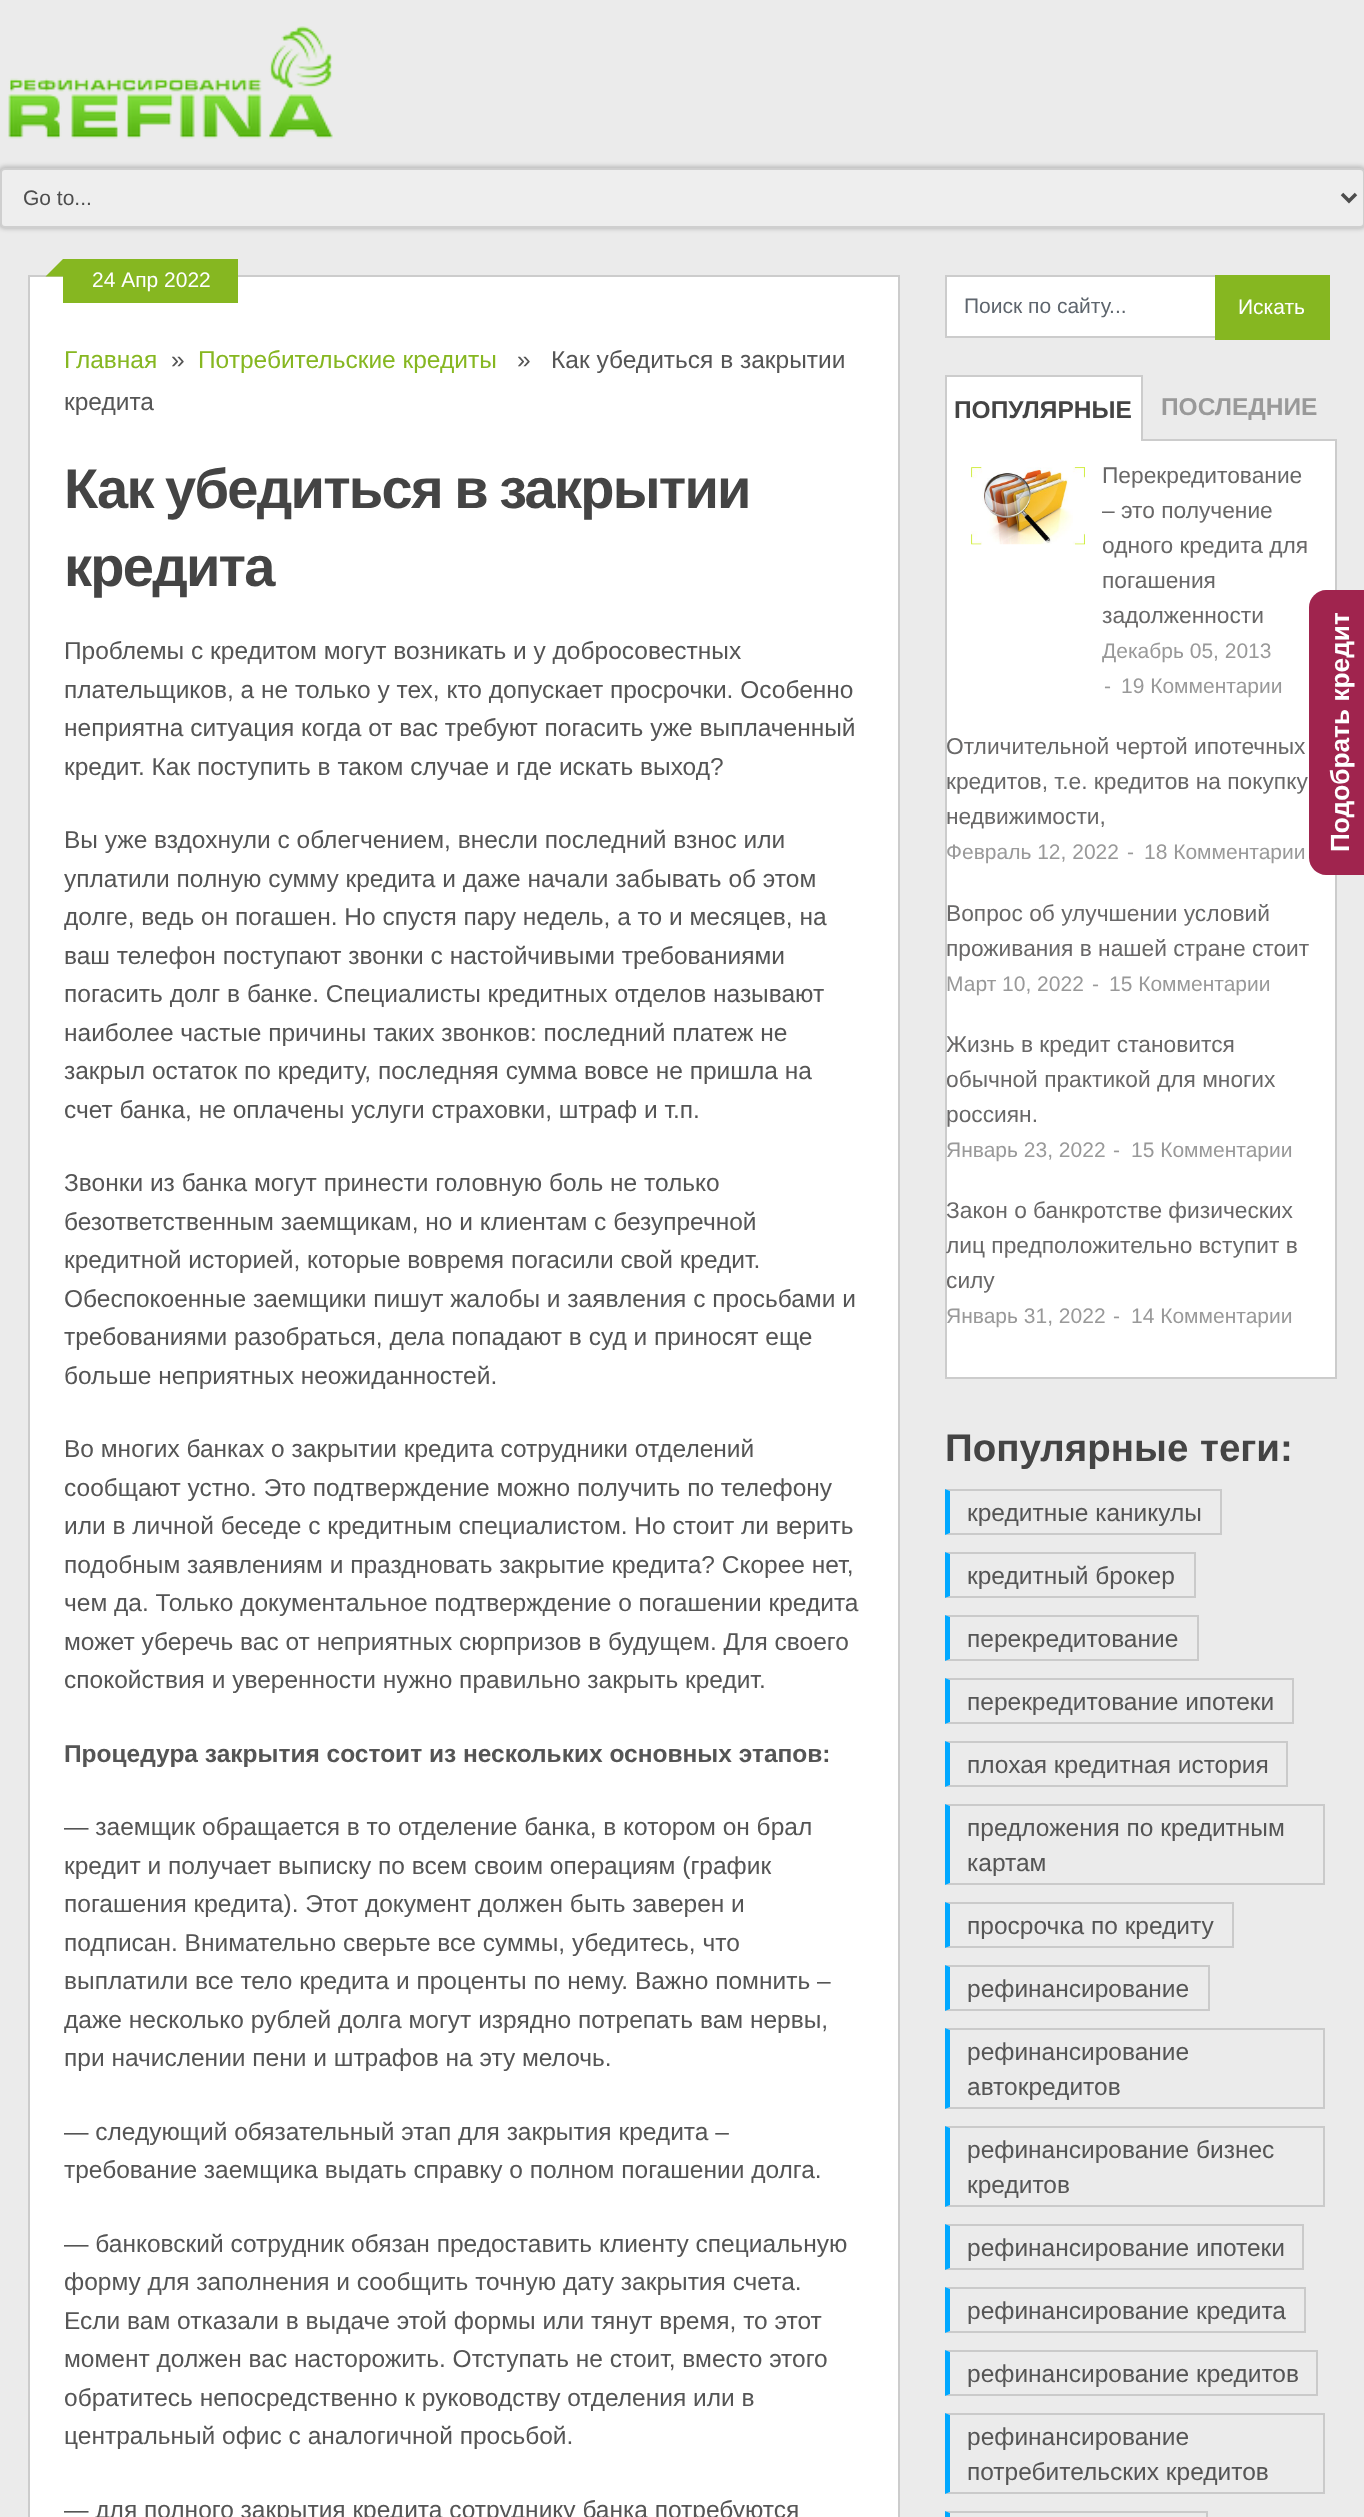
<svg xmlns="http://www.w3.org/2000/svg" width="1364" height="2517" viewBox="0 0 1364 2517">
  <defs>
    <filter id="blur1" x="-50%" y="-200%" width="200%" height="500%"><feGaussianBlur stdDeviation="2"/></filter>
  </defs>
  <rect width="100%" height="100%" fill="#ebebeb"/>
  <image x="8" y="26" width="325" height="113" href="img1.png"/>
  <rect x="-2" y="166" width="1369" height="63" rx="7" fill="#000000" fill-opacity="0.2" filter="url(#blur1)"/>
  <rect x="1" y="169" width="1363" height="58" rx="4" fill="#eeeeee" stroke="#cfcfcf" stroke-width="2"/>
  <path d="M1342 194L1349 201L1356 194" fill="none" stroke="#4d4d4d" stroke-width="3.5"/>
  <text x="23" y="205" font-family="Liberation Sans" font-size="21" fill="#4d4d4d">Go to...</text>
  <rect x="29" y="276" width="870" height="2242" fill="none" stroke="#cccccc" stroke-width="2"/>
  <rect x="30" y="277" width="868" height="2240" fill="#ffffff"/>
  <rect x="63" y="259" width="175" height="44" fill="#86b721"/>
  <path d="M63 276.5H45.5L63 259Z" fill="#86b721"/>
  <text x="92" y="287" font-family="Liberation Sans" font-size="21" fill="#ffffff">24 Апр 2022</text>
  <text x="64" y="368" font-family="Liberation Sans" font-size="24.5" fill="#86b721">Главная</text>
  <text x="171" y="368" font-family="Liberation Sans" font-size="24.5" fill="#555555">»</text>
  <text x="198" y="368" font-family="Liberation Sans" font-size="24.5" fill="#86b721">Потребительские кредиты</text>
  <text x="517" y="368" font-family="Liberation Sans" font-size="24.5" fill="#555555" xml:space="preserve">»   Как убедиться в закрытии</text>
  <text x="64" y="410" font-family="Liberation Sans" font-size="24.5" fill="#555555">кредита</text>
  <text x="64" y="508" word-spacing="-1.5" font-family="Liberation Sans" font-size="56" font-weight="bold" letter-spacing="-1.75" fill="#444444">Как убедиться в закрытии</text>
  <text x="64" y="586" font-family="Liberation Sans" font-size="56" font-weight="bold" letter-spacing="-1.75" fill="#444444">кредита</text>
  <text x="64" y="659" font-family="Liberation Sans" font-size="24.5" fill="#555555">Проблемы с кредитом могут возникать и у добросовестных</text>
  <text x="64" y="698" font-family="Liberation Sans" font-size="24.5" fill="#555555">плательщиков, а не только у тех, кто допускает просрочки. Особенно</text>
  <text x="64" y="736" font-family="Liberation Sans" font-size="24.5" fill="#555555">неприятна ситуация когда от вас требуют погасить уже выплаченный</text>
  <text x="64" y="775" font-family="Liberation Sans" font-size="24.5" fill="#555555">кредит. Как поступить в таком случае и где искать выход?</text>
  <text x="64" y="848" font-family="Liberation Sans" font-size="24.5" fill="#555555">Вы уже вздохнули с облегчением, внесли последний взнос или</text>
  <text x="64" y="887" font-family="Liberation Sans" font-size="24.5" fill="#555555">уплатили полную сумму кредита и даже начали забывать об этом</text>
  <text x="64" y="925" font-family="Liberation Sans" font-size="24.5" fill="#555555">долге, ведь он погашен. Но спустя пару недель, а то и месяцев, на</text>
  <text x="64" y="964" font-family="Liberation Sans" font-size="24.5" fill="#555555">ваш телефон поступают звонки с настойчивыми требованиями</text>
  <text x="64" y="1002" font-family="Liberation Sans" font-size="24.5" fill="#555555">погасить долг в банке. Специалисты кредитных отделов называют</text>
  <text x="64" y="1041" font-family="Liberation Sans" font-size="24.5" fill="#555555">наиболее частые причины таких звонков: последний платеж не</text>
  <text x="64" y="1079" font-family="Liberation Sans" font-size="24.5" fill="#555555">закрыл остаток по кредиту, последняя сумма вовсе не пришла на</text>
  <text x="64" y="1118" font-family="Liberation Sans" font-size="24.5" fill="#555555">счет банка, не оплачены услуги страховки, штраф и т.п.</text>
  <text x="64" y="1191" font-family="Liberation Sans" font-size="24.5" fill="#555555">Звонки из банка могут принести головную боль не только</text>
  <text x="64" y="1230" font-family="Liberation Sans" font-size="24.5" fill="#555555">безответственным заемщикам, но и клиентам с безупречной</text>
  <text x="64" y="1268" font-family="Liberation Sans" font-size="24.5" fill="#555555">кредитной историей, которые вовремя погасили свой кредит.</text>
  <text x="64" y="1307" font-family="Liberation Sans" font-size="24.5" fill="#555555">Обеспокоенные заемщики пишут жалобы и заявления с просьбами и</text>
  <text x="64" y="1345" font-family="Liberation Sans" font-size="24.5" fill="#555555">требованиями разобраться, дела попадают в суд и приносят еще</text>
  <text x="64" y="1384" font-family="Liberation Sans" font-size="24.5" fill="#555555">больше неприятных неожиданностей.</text>
  <text x="64" y="1457" font-family="Liberation Sans" font-size="24.5" fill="#555555">Во многих банках о закрытии кредита сотрудники отделений</text>
  <text x="64" y="1496" font-family="Liberation Sans" font-size="24.5" fill="#555555">сообщают устно. Это подтверждение можно получить по телефону</text>
  <text x="64" y="1534" font-family="Liberation Sans" font-size="24.5" fill="#555555">или в личной беседе с кредитным специалистом. Но стоит ли верить</text>
  <text x="64" y="1573" font-family="Liberation Sans" font-size="24.5" fill="#555555">подобным заявлениям и праздновать закрытие кредита? Скорее нет,</text>
  <text x="64" y="1611" font-family="Liberation Sans" font-size="24.5" fill="#555555">чем да. Только документальное подтверждение о погашении кредита</text>
  <text x="64" y="1650" font-family="Liberation Sans" font-size="24.5" fill="#555555">может уберечь вас от неприятных сюрпризов в будущем. Для своего</text>
  <text x="64" y="1688" font-family="Liberation Sans" font-size="24.5" fill="#555555">спокойствия и уверенности нужно правильно закрыть кредит.</text>
  <text x="64" y="1762" font-family="Liberation Sans" font-size="24.5" font-weight="bold" fill="#555555">Процедура закрытия состоит из нескольких основных этапов:</text>
  <text x="64" y="1835" font-family="Liberation Sans" font-size="24.5" fill="#555555">— заемщик обращается в то отделение банка, в котором он брал</text>
  <text x="64" y="1874" font-family="Liberation Sans" font-size="24.5" fill="#555555">кредит и получает выписку по всем своим операциям (график</text>
  <text x="64" y="1912" font-family="Liberation Sans" font-size="24.5" fill="#555555">погашения кредита). Этот документ должен быть заверен и</text>
  <text x="64" y="1951" font-family="Liberation Sans" font-size="24.5" fill="#555555">подписан. Внимательно сверьте все суммы, убедитесь, что</text>
  <text x="64" y="1989" font-family="Liberation Sans" font-size="24.5" fill="#555555">выплатили все тело кредита и проценты по нему. Важно помнить –</text>
  <text x="64" y="2028" font-family="Liberation Sans" font-size="24.5" fill="#555555">даже несколько рублей долга могут изрядно потрепать вам нервы,</text>
  <text x="64" y="2066" font-family="Liberation Sans" font-size="24.5" fill="#555555">при начислении пени и штрафов на эту мелочь.</text>
  <text x="64" y="2140" font-family="Liberation Sans" font-size="24.5" fill="#555555">— следующий обязательный этап для закрытия кредита –</text>
  <text x="64" y="2178" font-family="Liberation Sans" font-size="24.5" fill="#555555">требование заемщика выдать справку о полном погашении долга.</text>
  <text x="64" y="2252" font-family="Liberation Sans" font-size="24.5" fill="#555555">— банковский сотрудник обязан предоставить клиенту специальную</text>
  <text x="64" y="2290" font-family="Liberation Sans" font-size="24.5" fill="#555555">форму для заполнения и сообщить точную дату закрытия счета.</text>
  <text x="64" y="2329" font-family="Liberation Sans" font-size="24.5" fill="#555555">Если вам отказали в выдаче этой формы или тянут время, то этот</text>
  <text x="64" y="2367" font-family="Liberation Sans" font-size="24.5" fill="#555555">момент должен вас насторожить. Отступать не стоит, вместо этого</text>
  <text x="64" y="2406" font-family="Liberation Sans" font-size="24.5" fill="#555555">обратитесь непосредственно к руководству отделения или в</text>
  <text x="64" y="2444" font-family="Liberation Sans" font-size="24.5" fill="#555555">центральный офис с аналогичной просьбой.</text>
  <text x="64" y="2518" font-family="Liberation Sans" font-size="24.5" fill="#555555">— для полного закрытия кредита сотруднику банка потребуются</text>
  <rect x="947" y="277" width="268" height="59" fill="#ffffff"/>
  <rect x="945" y="275" width="270" height="2" fill="#cccccc"/>
  <rect x="945" y="336" width="270" height="2" fill="#cccccc"/>
  <rect x="945" y="275" width="2" height="63" fill="#cccccc"/>
  <text x="964" y="313" font-family="Liberation Sans" font-size="21" fill="#5e656d">Поиск по сайту...</text>
  <rect x="1215" y="275" width="115" height="65" fill="#86b721"/>
  <text x="1238" y="314" font-family="Liberation Sans" font-size="21" fill="#ffffff">Искать</text>
  <rect x="947" y="377" width="194" height="64" fill="#ffffff"/>
  <rect x="945" y="375" width="198" height="2" fill="#cccccc"/>
  <rect x="1141" y="375" width="2" height="66" fill="#cccccc"/>
  <rect x="945" y="375" width="2" height="66" fill="#cccccc"/>
  <text x="954" y="418" font-family="Liberation Sans" font-size="24.5" font-weight="bold" fill="#444444">ПОПУЛЯРНЫЕ</text>
  <rect x="1141" y="439" width="196" height="2" fill="#cccccc"/>
  <text x="1161" y="415" font-family="Liberation Sans" font-size="24.5" font-weight="bold" fill="#999999">ПОСЛЕДНИЕ</text>
  <rect x="947" y="441" width="388" height="936" fill="#ffffff"/>
  <rect x="1335" y="441" width="2" height="938" fill="#cccccc"/>
  <rect x="945" y="1377" width="392" height="2" fill="#cccccc"/>
  <rect x="945" y="441" width="2" height="938" fill="#cccccc"/>
  <image x="971" y="467" width="114" height="78" href="img2.png"/>
  <text x="1102" y="483" font-family="Liberation Sans" font-size="22.75" fill="#696868">Перекредитование</text>
  <text x="1102" y="518" font-family="Liberation Sans" font-size="22.75" fill="#696868">– это получение</text>
  <text x="1102" y="553" font-family="Liberation Sans" font-size="22.75" fill="#696868">одного кредита для</text>
  <text x="1102" y="588" font-family="Liberation Sans" font-size="22.75" fill="#696868">погашения</text>
  <text x="1102" y="623" font-family="Liberation Sans" font-size="22.75" fill="#696868">задолженности</text>
  <text x="1102" y="658" font-family="Liberation Sans" font-size="21" fill="#999999">Декабрь 05, 2013</text>
  <text x="1104" y="693" font-family="Liberation Sans" font-size="21" fill="#999999">-</text>
  <text x="1121" y="693" font-family="Liberation Sans" font-size="21" fill="#999999">19 Комментарии</text>
  <text x="946" y="754" font-family="Liberation Sans" font-size="22.75" fill="#696868">Отличительной чертой ипотечных</text>
  <text x="946" y="789" font-family="Liberation Sans" font-size="22.75" fill="#696868">кредитов, т.е. кредитов на покупку</text>
  <text x="946" y="824" font-family="Liberation Sans" font-size="22.75" fill="#696868">недвижимости,</text>
  <text x="946" y="859" font-family="Liberation Sans" font-size="21" fill="#999999">Февраль 12, 2022</text>
  <text x="1127" y="859" font-family="Liberation Sans" font-size="21" fill="#999999">-</text>
  <text x="1144" y="859" font-family="Liberation Sans" font-size="21" fill="#999999">18 Комментарии</text>
  <text x="946" y="921" font-family="Liberation Sans" font-size="22.75" fill="#696868">Вопрос об улучшении условий</text>
  <text x="946" y="956" font-family="Liberation Sans" font-size="22.75" fill="#696868">проживания в нашей стране стоит</text>
  <text x="946" y="991" font-family="Liberation Sans" font-size="21" fill="#999999">Март 10, 2022</text>
  <text x="1092" y="991" font-family="Liberation Sans" font-size="21" fill="#999999">-</text>
  <text x="1109" y="991" font-family="Liberation Sans" font-size="21" fill="#999999">15 Комментарии</text>
  <text x="946" y="1052" font-family="Liberation Sans" font-size="22.75" fill="#696868">Жизнь в кредит становится</text>
  <text x="946" y="1087" font-family="Liberation Sans" font-size="22.75" fill="#696868">обычной практикой для многих</text>
  <text x="946" y="1122" font-family="Liberation Sans" font-size="22.75" fill="#696868">россиян.</text>
  <text x="946" y="1157" font-family="Liberation Sans" font-size="21" fill="#999999">Январь 23, 2022</text>
  <text x="1113" y="1157" font-family="Liberation Sans" font-size="21" fill="#999999">-</text>
  <text x="1131" y="1157" font-family="Liberation Sans" font-size="21" fill="#999999">15 Комментарии</text>
  <text x="946" y="1218" font-family="Liberation Sans" font-size="22.75" fill="#696868">Закон о банкротстве физических</text>
  <text x="946" y="1253" font-family="Liberation Sans" font-size="22.75" fill="#696868">лиц предположительно вступит в</text>
  <text x="946" y="1288" font-family="Liberation Sans" font-size="22.75" fill="#696868">силу</text>
  <text x="946" y="1323" font-family="Liberation Sans" font-size="21" fill="#999999">Январь 31, 2022</text>
  <text x="1113" y="1323" font-family="Liberation Sans" font-size="21" fill="#999999">-</text>
  <text x="1131" y="1323" font-family="Liberation Sans" font-size="21" fill="#999999">14 Комментарии</text>
  <text x="945" y="1461" word-spacing="1" font-family="Liberation Sans" font-size="38.5" font-weight="bold" fill="#444444">Популярные теги:</text>
  <path d="M945 1489H1222L1220 1491H950Z" fill="#cacaca"/>
  <rect x="1220" y="1489" width="2" height="46" fill="#cacaca"/>
  <path d="M1222 1535H945L950 1533H1220Z" fill="#cacaca"/>
  <path d="M945 1535V1489L950 1491V1533Z" fill="#00a8ff"/>
  <text x="967" y="1521" font-family="Liberation Sans" font-size="24.5" fill="#555555">кредитные каникулы</text>
  <path d="M945 1552H1195L1194 1554H950Z" fill="#cacaca"/>
  <rect x="1194" y="1552" width="2" height="46" fill="#cacaca"/>
  <path d="M1195 1598H945L950 1596H1194Z" fill="#cacaca"/>
  <path d="M945 1598V1552L950 1554V1596Z" fill="#00a8ff"/>
  <text x="967" y="1584" font-family="Liberation Sans" font-size="24.5" fill="#555555">кредитный брокер</text>
  <path d="M945 1615H1199L1197 1617H950Z" fill="#cacaca"/>
  <rect x="1197" y="1615" width="2" height="46" fill="#cacaca"/>
  <path d="M1199 1661H945L950 1659H1197Z" fill="#cacaca"/>
  <path d="M945 1661V1615L950 1617V1659Z" fill="#00a8ff"/>
  <text x="967" y="1647" font-family="Liberation Sans" font-size="24.5" fill="#555555">перекредитование</text>
  <path d="M945 1678H1293L1292 1680H950Z" fill="#cacaca"/>
  <rect x="1292" y="1678" width="2" height="46" fill="#cacaca"/>
  <path d="M1293 1724H945L950 1722H1292Z" fill="#cacaca"/>
  <path d="M945 1724V1678L950 1680V1722Z" fill="#00a8ff"/>
  <text x="967" y="1710" font-family="Liberation Sans" font-size="24.5" fill="#555555">перекредитование ипотеки</text>
  <path d="M945 1741H1288L1286 1743H950Z" fill="#cacaca"/>
  <rect x="1286" y="1741" width="2" height="46" fill="#cacaca"/>
  <path d="M1288 1787H945L950 1785H1286Z" fill="#cacaca"/>
  <path d="M945 1787V1741L950 1743V1785Z" fill="#00a8ff"/>
  <text x="967" y="1773" font-family="Liberation Sans" font-size="24.5" fill="#555555">плохая кредитная история</text>
  <path d="M945 1804H1325L1323 1806H950Z" fill="#cacaca"/>
  <rect x="1323" y="1804" width="2" height="81" fill="#cacaca"/>
  <path d="M1325 1885H945L950 1883H1323Z" fill="#cacaca"/>
  <path d="M945 1885V1804L950 1806V1883Z" fill="#00a8ff"/>
  <text x="967" y="1836" font-family="Liberation Sans" font-size="24.5" fill="#555555">предложения по кредитным</text>
  <text x="967" y="1871" font-family="Liberation Sans" font-size="24.5" fill="#555555">картам</text>
  <path d="M945 1902H1234L1232 1904H950Z" fill="#cacaca"/>
  <rect x="1232" y="1902" width="2" height="46" fill="#cacaca"/>
  <path d="M1234 1948H945L950 1946H1232Z" fill="#cacaca"/>
  <path d="M945 1948V1902L950 1904V1946Z" fill="#00a8ff"/>
  <text x="967" y="1934" font-family="Liberation Sans" font-size="24.5" fill="#555555">просрочка по кредиту</text>
  <path d="M945 1965H1209L1208 1967H950Z" fill="#cacaca"/>
  <rect x="1208" y="1965" width="2" height="46" fill="#cacaca"/>
  <path d="M1209 2011H945L950 2009H1208Z" fill="#cacaca"/>
  <path d="M945 2011V1965L950 1967V2009Z" fill="#00a8ff"/>
  <text x="967" y="1997" font-family="Liberation Sans" font-size="24.5" fill="#555555">рефинансирование</text>
  <path d="M945 2028H1325L1323 2030H950Z" fill="#cacaca"/>
  <rect x="1323" y="2028" width="2" height="81" fill="#cacaca"/>
  <path d="M1325 2109H945L950 2107H1323Z" fill="#cacaca"/>
  <path d="M945 2109V2028L950 2030V2107Z" fill="#00a8ff"/>
  <text x="967" y="2060" font-family="Liberation Sans" font-size="24.5" fill="#555555">рефинансирование</text>
  <text x="967" y="2095" font-family="Liberation Sans" font-size="24.5" fill="#555555">автокредитов</text>
  <path d="M945 2126H1325L1323 2128H950Z" fill="#cacaca"/>
  <rect x="1323" y="2126" width="2" height="81" fill="#cacaca"/>
  <path d="M1325 2207H945L950 2205H1323Z" fill="#cacaca"/>
  <path d="M945 2207V2126L950 2128V2205Z" fill="#00a8ff"/>
  <text x="967" y="2158" font-family="Liberation Sans" font-size="24.5" fill="#555555">рефинансирование бизнес</text>
  <text x="967" y="2193" font-family="Liberation Sans" font-size="24.5" fill="#555555">кредитов</text>
  <path d="M945 2224H1304L1302 2226H950Z" fill="#cacaca"/>
  <rect x="1302" y="2224" width="2" height="46" fill="#cacaca"/>
  <path d="M1304 2270H945L950 2268H1302Z" fill="#cacaca"/>
  <path d="M945 2270V2224L950 2226V2268Z" fill="#00a8ff"/>
  <text x="967" y="2256" font-family="Liberation Sans" font-size="24.5" fill="#555555">рефинансирование ипотеки</text>
  <path d="M945 2287H1306L1304 2289H950Z" fill="#cacaca"/>
  <rect x="1304" y="2287" width="2" height="46" fill="#cacaca"/>
  <path d="M1306 2333H945L950 2331H1304Z" fill="#cacaca"/>
  <path d="M945 2333V2287L950 2289V2331Z" fill="#00a8ff"/>
  <text x="967" y="2319" font-family="Liberation Sans" font-size="24.5" fill="#555555">рефинансирование кредита</text>
  <path d="M945 2350H1318L1316 2352H950Z" fill="#cacaca"/>
  <rect x="1316" y="2350" width="2" height="46" fill="#cacaca"/>
  <path d="M1318 2396H945L950 2394H1316Z" fill="#cacaca"/>
  <path d="M945 2396V2350L950 2352V2394Z" fill="#00a8ff"/>
  <text x="967" y="2382" font-family="Liberation Sans" font-size="24.5" fill="#555555">рефинансирование кредитов</text>
  <path d="M945 2413H1325L1323 2415H950Z" fill="#cacaca"/>
  <rect x="1323" y="2413" width="2" height="81" fill="#cacaca"/>
  <path d="M1325 2494H945L950 2492H1323Z" fill="#cacaca"/>
  <path d="M945 2494V2413L950 2415V2492Z" fill="#00a8ff"/>
  <text x="967" y="2445" font-family="Liberation Sans" font-size="24.5" fill="#555555">рефинансирование</text>
  <text x="967" y="2480" font-family="Liberation Sans" font-size="24.5" fill="#555555">потребительских кредитов</text>
  <path d="M945 2511H1208L1206 2513H950Z" fill="#cacaca"/>
  <rect x="1206" y="2511" width="2" height="6" fill="#cacaca"/>
  <path d="M945 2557V2511L950 2513V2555Z" fill="#00a8ff"/>
  <path d="M1309 858V607C1309 598 1317 590 1326 590H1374V875H1326C1317 875 1309 867 1309 858Z" fill="#a0244e"/>
  <text x="1349" y="852" transform="rotate(-90 1349 852)" font-family="Liberation Sans" font-size="26.25" font-weight="bold" fill="#ffffff">Подобрать кредит</text>
</svg>
